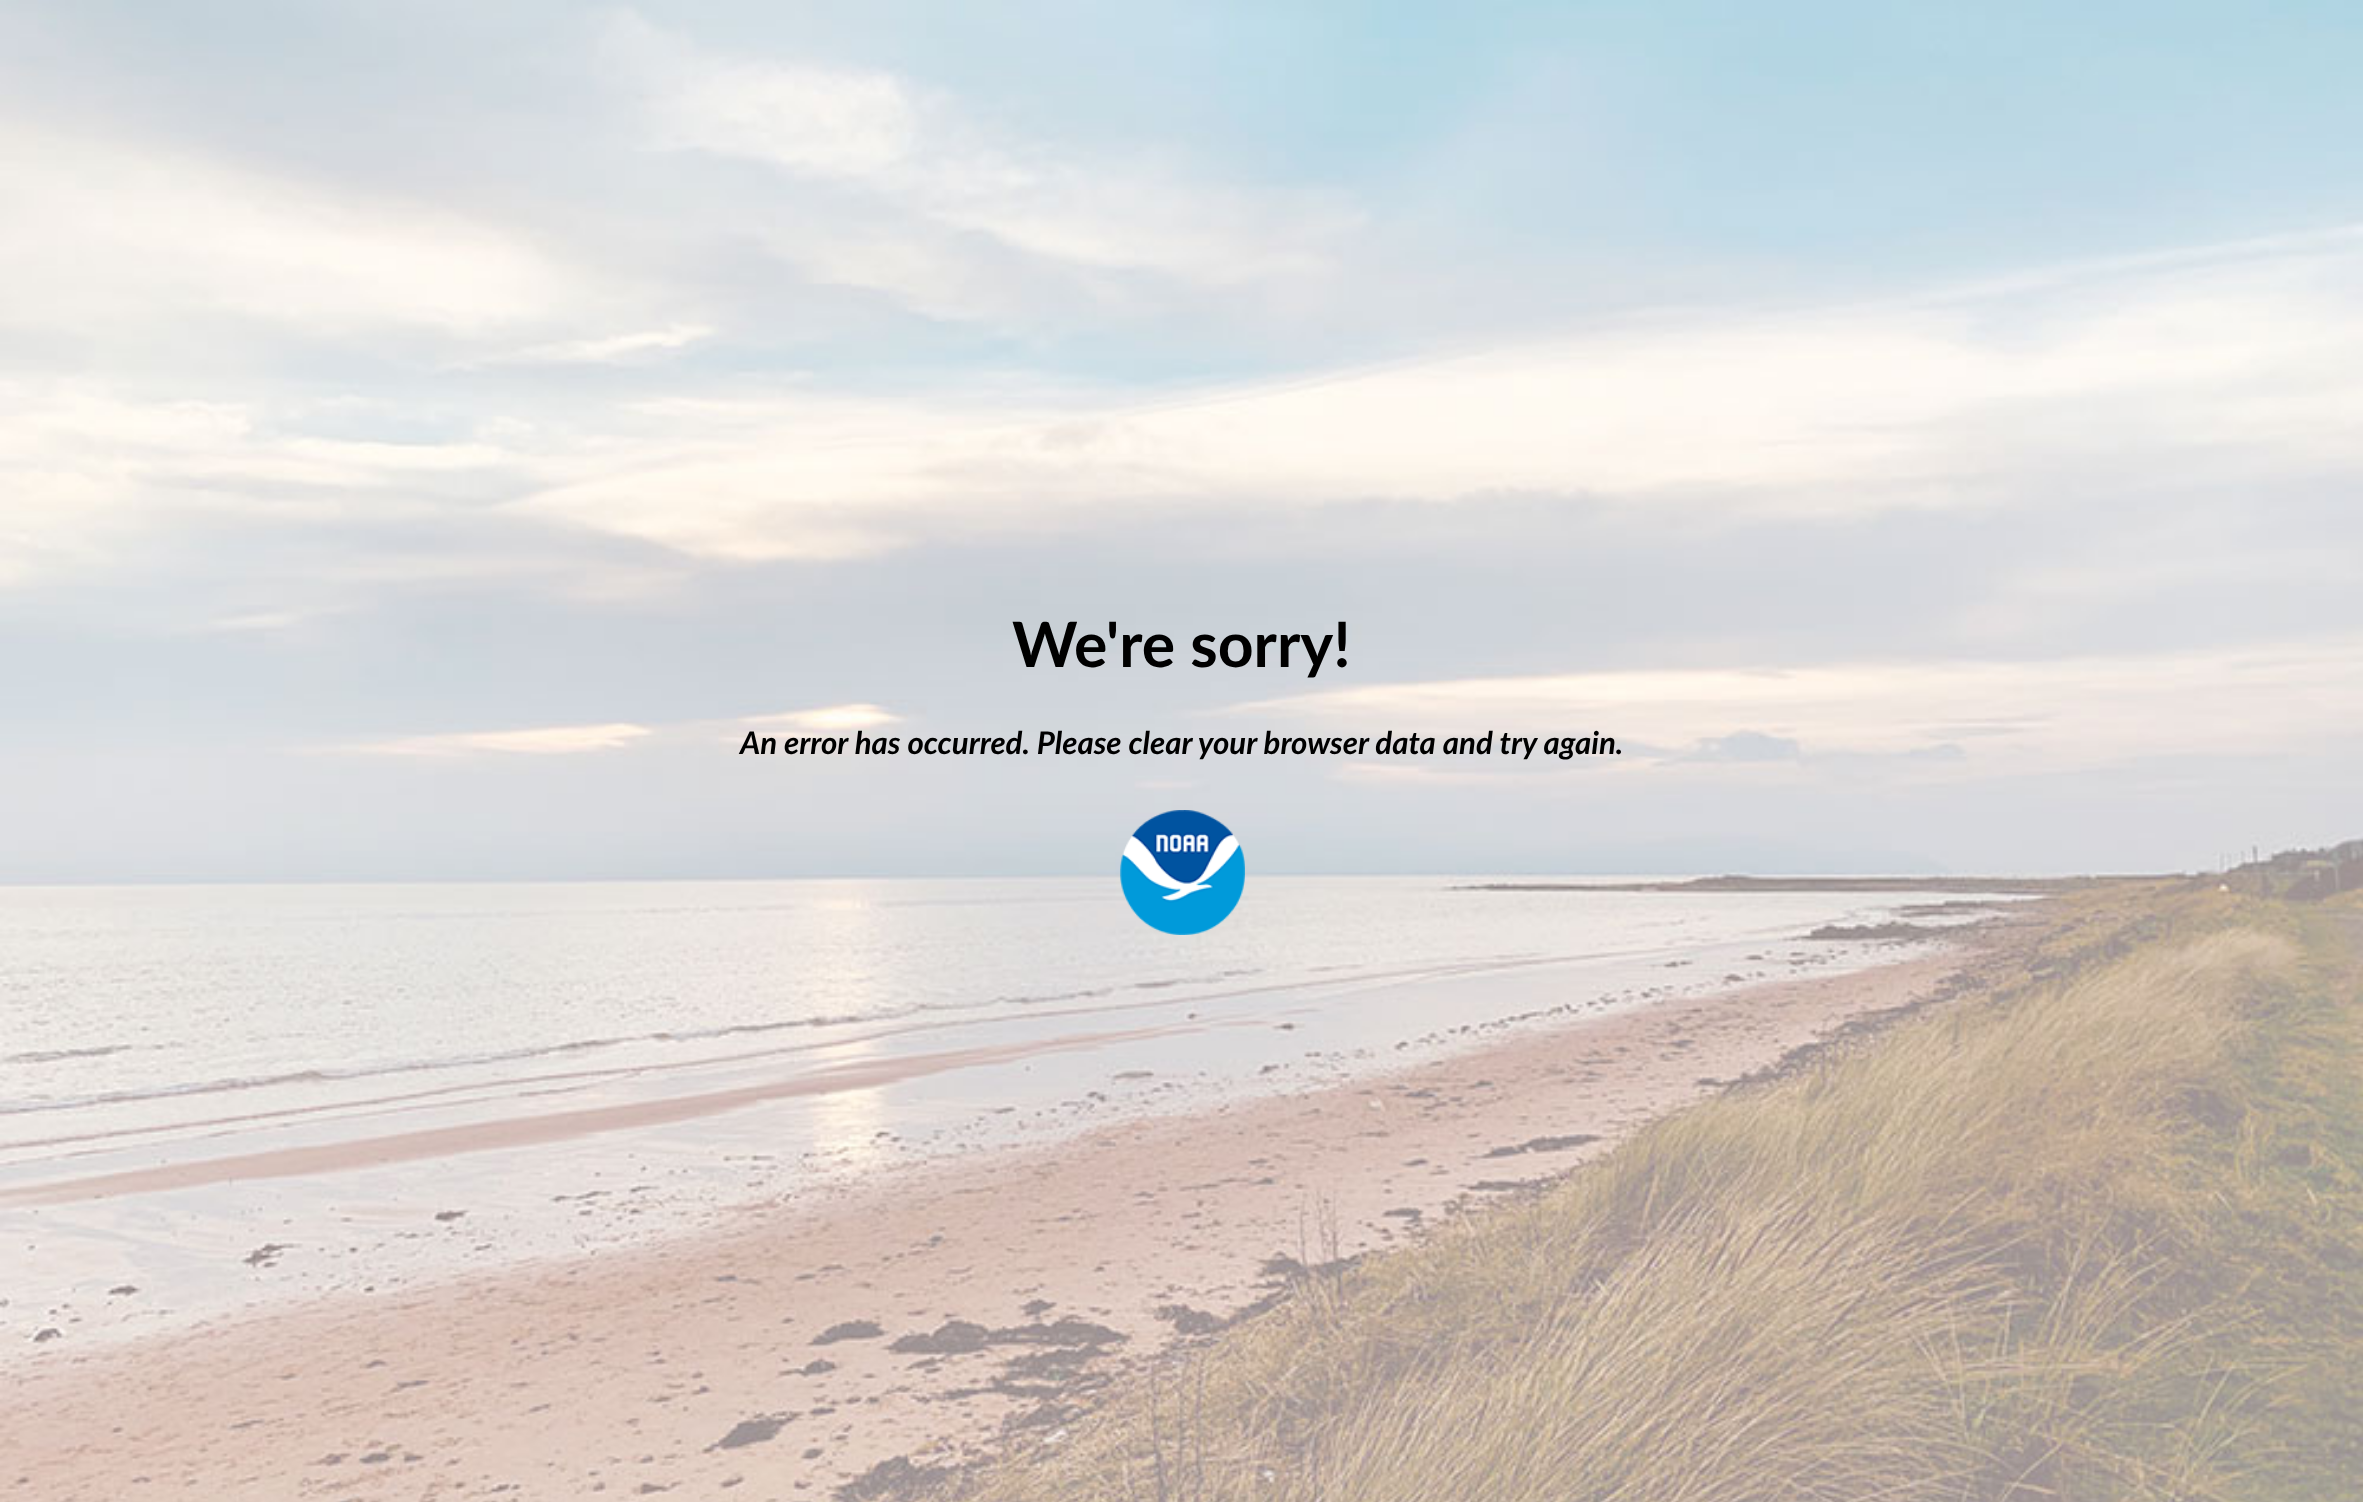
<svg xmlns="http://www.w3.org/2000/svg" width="2363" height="1502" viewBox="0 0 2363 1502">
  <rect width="100%" height="100%" fill="#ffffff"/>
  <image x="0" y="0" width="2363" height="1502" href="img1.png"/>
  <text x="1012" y="667" font-family="Lato" font-size="62.5" font-weight="bold" fill="#000000">We're sorry!</text>
  <text x="740" y="754" font-family="Lato" font-size="31.25" font-weight="bold" font-style="italic" fill="#000000">An error has occurred. Please clear your browser data and try again.</text>
  <image x="1120" y="810" width="125" height="125" href="img2.png"/>
</svg>
